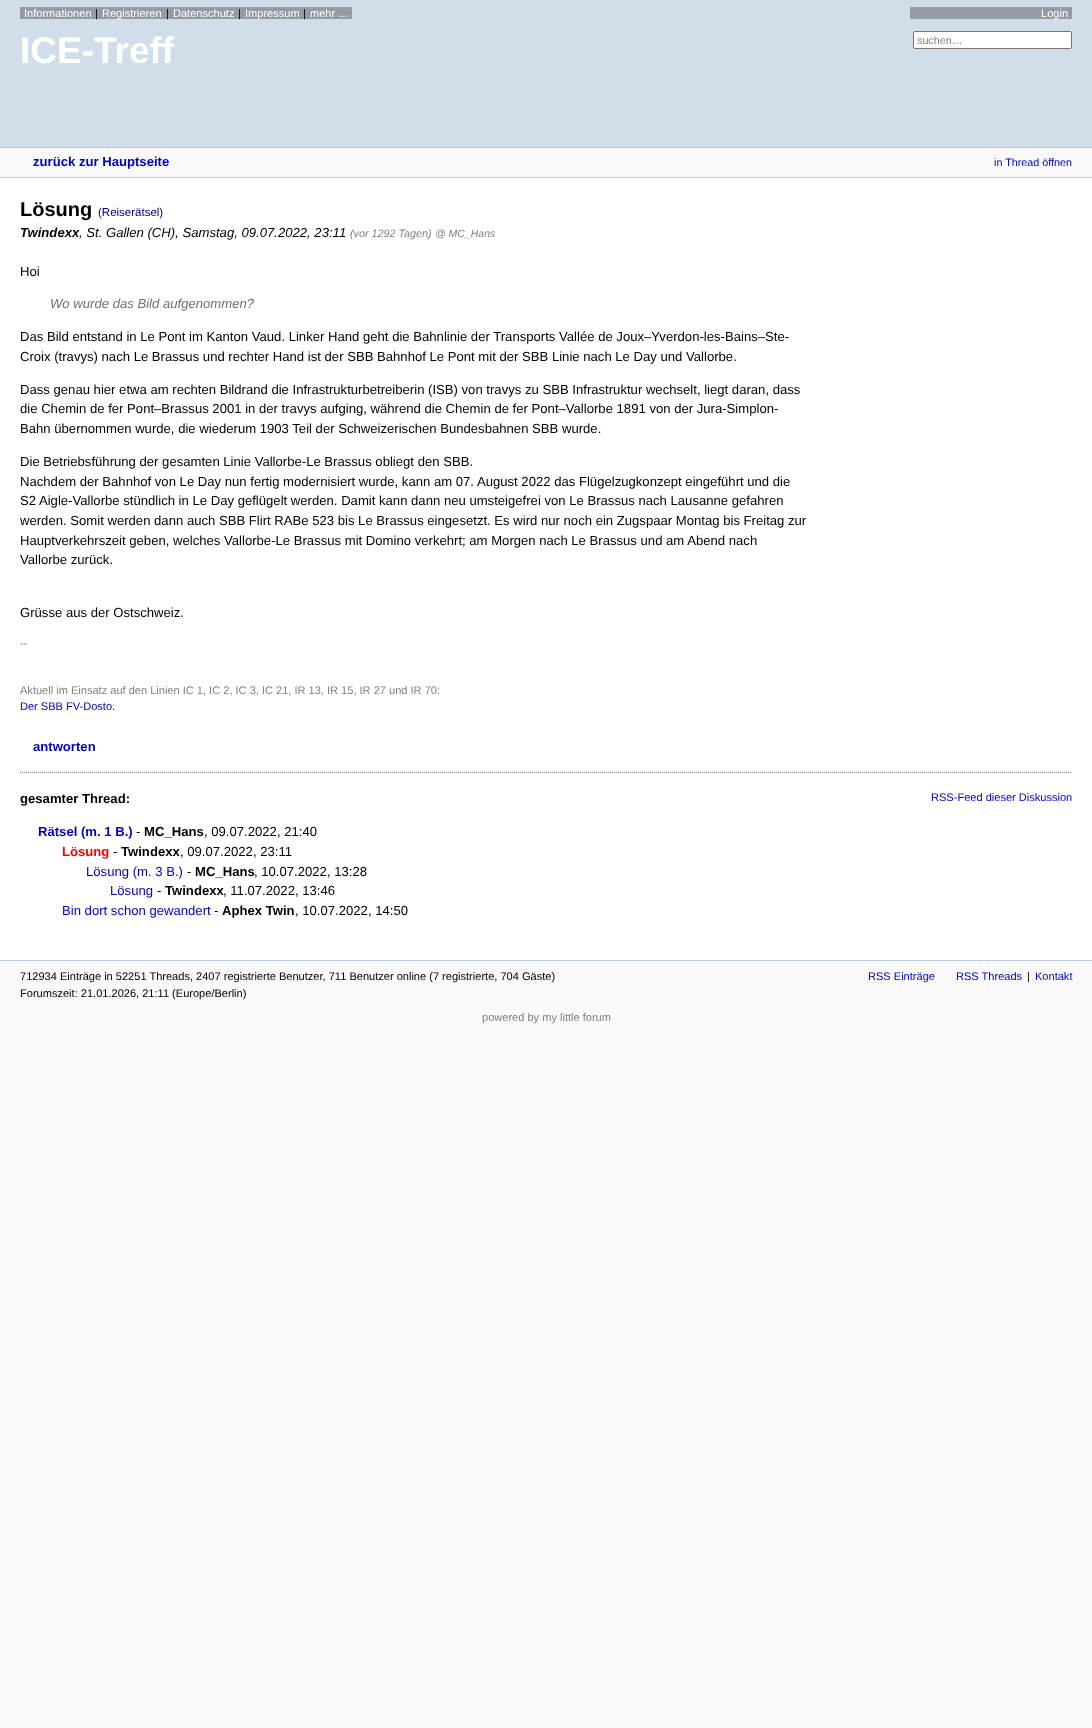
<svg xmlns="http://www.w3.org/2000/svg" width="1092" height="1728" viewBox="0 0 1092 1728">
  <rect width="100%" height="100%" fill="#f9f9f9"/>
  <rect x="0" y="0" width="1092" height="147" fill="#d2ddea"/>
  <rect x="20" y="7" width="332" height="12" fill="#939ba4"/>
  <text x="24" y="17" font-family="Liberation Sans" font-size="11.05" fill="#ffffff">Informationen</text>
  <text x="95" y="17" font-family="Liberation Sans" font-size="11.05" fill="#000000">|</text>
  <text x="102" y="17" font-family="Liberation Sans" font-size="11.05" fill="#ffffff">Registrieren</text>
  <text x="166" y="17" font-family="Liberation Sans" font-size="11.05" fill="#000000">|</text>
  <text x="173" y="17" font-family="Liberation Sans" font-size="11.05" fill="#ffffff">Datenschutz</text>
  <text x="238" y="17" font-family="Liberation Sans" font-size="11.05" fill="#000000">|</text>
  <text x="245" y="17" font-family="Liberation Sans" font-size="11.05" fill="#ffffff">Impressum</text>
  <text x="303" y="17" font-family="Liberation Sans" font-size="11.05" fill="#000000">|</text>
  <text x="310" y="17" font-family="Liberation Sans" font-size="11.05" fill="#ffffff">mehr ...</text>
  <text x="20" y="63" font-family="Liberation Sans" font-size="37" font-weight="bold" fill="#ffffff">ICE-Treff</text>
  <rect x="910" y="7" width="162" height="12" fill="#939ba4"/>
  <text x="1041" y="17" font-family="Liberation Sans" font-size="11.05" fill="#ffffff">Login</text>
  <rect x="913.5" y="31.5" width="158" height="17" rx="1.5" fill="#ffffff" stroke="#767676"/>
  <text x="917" y="44" font-family="Liberation Sans" font-size="10.75" fill="#808080">suchen…</text>
  <rect x="0" y="147" width="1092" height="1" fill="#bacbdf"/>
  <rect x="0" y="177" width="1092" height="1" fill="#bacbdf"/>
  <text x="33" y="166" font-family="Liberation Sans" font-size="13.12" font-weight="bold" fill="#0000cc">zurück zur Hauptseite</text>
  <text x="994" y="166" font-family="Liberation Sans" font-size="10.75" fill="#0000cc">in Thread öffnen</text>
  <rect x="0" y="178" width="1092" height="782" fill="#ffffff"/>
  <text x="20" y="216" font-family="Liberation Sans" font-size="20" font-weight="bold" fill="#000000">Lösung</text>
  <text x="98" y="216" font-family="Liberation Sans" font-size="11.5" fill="#000080">(Reiserätsel)</text>
  <text x="20" y="237" font-family="Liberation Sans" font-size="13.12" font-weight="bold" font-style="italic" fill="#000000">Twindexx</text>
  <text x="79" y="237" font-family="Liberation Sans" font-size="13.12" font-style="italic" fill="#000000">, St. Gallen (CH), Samstag, 09.07.2022, 23:11</text>
  <text x="350" y="237" font-family="Liberation Sans" font-size="10.75" font-style="italic" fill="#808080">(vor 1292 Tagen)</text>
  <text x="435" y="237" font-family="Liberation Sans" font-size="10.5" font-style="italic" fill="#808080">@ MC_Hans</text>
  <text x="20" y="276" font-family="Liberation Sans" font-size="13.12" fill="#000000">Hoi</text>
  <text x="50" y="308" font-family="Liberation Sans" font-size="13.12" font-style="italic" fill="#6f6f6f">Wo wurde das Bild aufgenommen?</text>
  <text x="20" y="341" font-family="Liberation Sans" font-size="13.12" fill="#000000">Das Bild entstand in Le Pont im Kanton Vaud. Linker Hand geht die Bahnlinie der Transports Vallée de Joux–Yverdon-les-Bains–Ste-</text>
  <text x="20" y="361" font-family="Liberation Sans" font-size="13.12" fill="#000000">Croix (travys) nach Le Brassus und rechter Hand ist der SBB Bahnhof Le Pont mit der SBB Linie nach Le Day und Vallorbe.</text>
  <text x="20" y="394" font-family="Liberation Sans" font-size="13.12" fill="#000000">Dass genau hier etwa am rechten Bildrand die Infrastrukturbetreiberin (ISB) von travys zu SBB Infrastruktur wechselt, liegt daran, dass</text>
  <text x="20" y="413" font-family="Liberation Sans" font-size="13.12" fill="#000000">die Chemin de fer Pont–Brassus 2001 in der travys aufging, während die Chemin de fer Pont–Vallorbe 1891 von der Jura-Simplon-</text>
  <text x="20" y="433" font-family="Liberation Sans" font-size="13.12" fill="#000000">Bahn übernommen wurde, die wiederum 1903 Teil der Schweizerischen Bundesbahnen SBB wurde.</text>
  <text x="20" y="466" font-family="Liberation Sans" font-size="13.12" fill="#000000">Die Betriebsführung der gesamten Linie Vallorbe-Le Brassus obliegt den SBB.</text>
  <text x="20" y="486" font-family="Liberation Sans" font-size="13.12" fill="#000000">Nachdem der Bahnhof von Le Day nun fertig modernisiert wurde, kann am 07. August 2022 das Flügelzugkonzept eingeführt und die</text>
  <text x="20" y="505" font-family="Liberation Sans" font-size="13.12" fill="#000000">S2 Aigle-Vallorbe stündlich in Le Day geflügelt werden. Damit kann dann neu umsteigefrei von Le Brassus nach Lausanne gefahren</text>
  <text x="20" y="525" font-family="Liberation Sans" font-size="13.12" fill="#000000">werden. Somit werden dann auch SBB Flirt RABe 523 bis Le Brassus eingesetzt. Es wird nur noch ein Zugspaar Montag bis Freitag zur</text>
  <text x="20" y="545" font-family="Liberation Sans" font-size="13.12" fill="#000000">Hauptverkehrszeit geben, welches Vallorbe-Le Brassus mit Domino verkehrt; am Morgen nach Le Brassus und am Abend nach</text>
  <text x="20" y="564" font-family="Liberation Sans" font-size="13.12" fill="#000000">Vallorbe zurück.</text>
  <text x="20" y="617" font-family="Liberation Sans" font-size="13.12" fill="#000000">Grüsse aus der Ostschweiz.</text>
  <text x="20" y="647" font-family="Liberation Sans" font-size="11.05" fill="#808080">--</text>
  <text x="20" y="694" font-family="Liberation Sans" font-size="11.05" fill="#808080">Aktuell im Einsatz auf den Linien IC 1, IC 2, IC 3, IC 21, IR 13, IR 15, IR 27 und IR 70:</text>
  <text x="20" y="710" font-family="Liberation Sans" font-size="11.05" fill="#0000cc">Der SBB FV-Dosto.</text>
  <text x="33" y="751" font-family="Liberation Sans" font-size="13.12" font-weight="bold" fill="#0000cc">antworten</text>
  <path d="M20 772.5H1072" fill="none" stroke="#808080" stroke-dasharray="1 1"/>
  <text x="20" y="803" font-family="Liberation Sans" font-size="13.12" font-weight="bold" fill="#000000">gesamter Thread:</text>
  <text x="931" y="801" font-family="Liberation Sans" font-size="11.05" fill="#0000cc">RSS-Feed dieser Diskussion</text>
  <text x="38" y="836" font-family="Liberation Sans" font-size="13.12" font-weight="bold" fill="#0000cc">Rätsel (m. 1 B.)</text>
  <text x="136" y="836" font-family="Liberation Sans" font-size="13.12" fill="#000000">-</text>
  <text x="144" y="836" font-family="Liberation Sans" font-size="13.12" font-weight="bold" fill="#000000">MC_Hans</text>
  <text x="204" y="836" font-family="Liberation Sans" font-size="13.12" fill="#000000">, 09.07.2022, 21:40</text>
  <text x="62" y="856" font-family="Liberation Sans" font-size="13.12" font-weight="bold" fill="#ff0000">Lösung</text>
  <text x="113" y="856" font-family="Liberation Sans" font-size="13.12" fill="#000000">-</text>
  <text x="121" y="856" font-family="Liberation Sans" font-size="13.12" font-weight="bold" fill="#000000">Twindexx</text>
  <text x="180" y="856" font-family="Liberation Sans" font-size="13.12" fill="#000000">, 09.07.2022, 23:11</text>
  <text x="86" y="876" font-family="Liberation Sans" font-size="13.12" fill="#0000cc">Lösung (m. 3 B.)</text>
  <text x="187" y="876" font-family="Liberation Sans" font-size="13.12" fill="#000000">-</text>
  <text x="195" y="876" font-family="Liberation Sans" font-size="13.12" font-weight="bold" fill="#000000">MC_Hans</text>
  <text x="254" y="876" font-family="Liberation Sans" font-size="13.12" fill="#000000">, 10.07.2022, 13:28</text>
  <text x="110" y="895" font-family="Liberation Sans" font-size="13.12" fill="#0000cc">Lösung</text>
  <text x="157" y="895" font-family="Liberation Sans" font-size="13.12" fill="#000000">-</text>
  <text x="165" y="895" font-family="Liberation Sans" font-size="13.12" font-weight="bold" fill="#000000">Twindexx</text>
  <text x="223" y="895" font-family="Liberation Sans" font-size="13.12" fill="#000000">, 11.07.2022, 13:46</text>
  <text x="62" y="915" font-family="Liberation Sans" font-size="13.12" fill="#0000cc">Bin dort schon gewandert</text>
  <text x="214" y="915" font-family="Liberation Sans" font-size="13.12" fill="#000000">-</text>
  <text x="222" y="915" font-family="Liberation Sans" font-size="13.12" font-weight="bold" fill="#000000">Aphex Twin</text>
  <text x="295" y="915" font-family="Liberation Sans" font-size="13.12" fill="#000000">, 10.07.2022, 14:50</text>
  <rect x="0" y="960" width="1092" height="1" fill="#bacbdf"/>
  <text x="20" y="980" font-family="Liberation Sans" font-size="11.05" fill="#000000">712934 Einträge in 52251 Threads, 2407 registrierte Benutzer, 711 Benutzer online (7 registrierte, 704 Gäste)</text>
  <text x="20" y="997" font-family="Liberation Sans" font-size="11.05" fill="#000000">Forumszeit: 21.01.2026, 21:11 (Europe/Berlin)</text>
  <text x="868" y="980" font-family="Liberation Sans" font-size="11.05" fill="#0000cc">RSS Einträge</text>
  <text x="956" y="980" font-family="Liberation Sans" font-size="11.05" fill="#0000cc">RSS Threads</text>
  <text x="1027" y="980" font-family="Liberation Sans" font-size="11.05" fill="#000000">|</text>
  <text x="1035" y="980" font-family="Liberation Sans" font-size="11.05" fill="#0000cc">Kontakt</text>
  <text x="482" y="1021" font-family="Liberation Sans" font-size="11.05" fill="#808080">powered by my little forum</text>
</svg>
